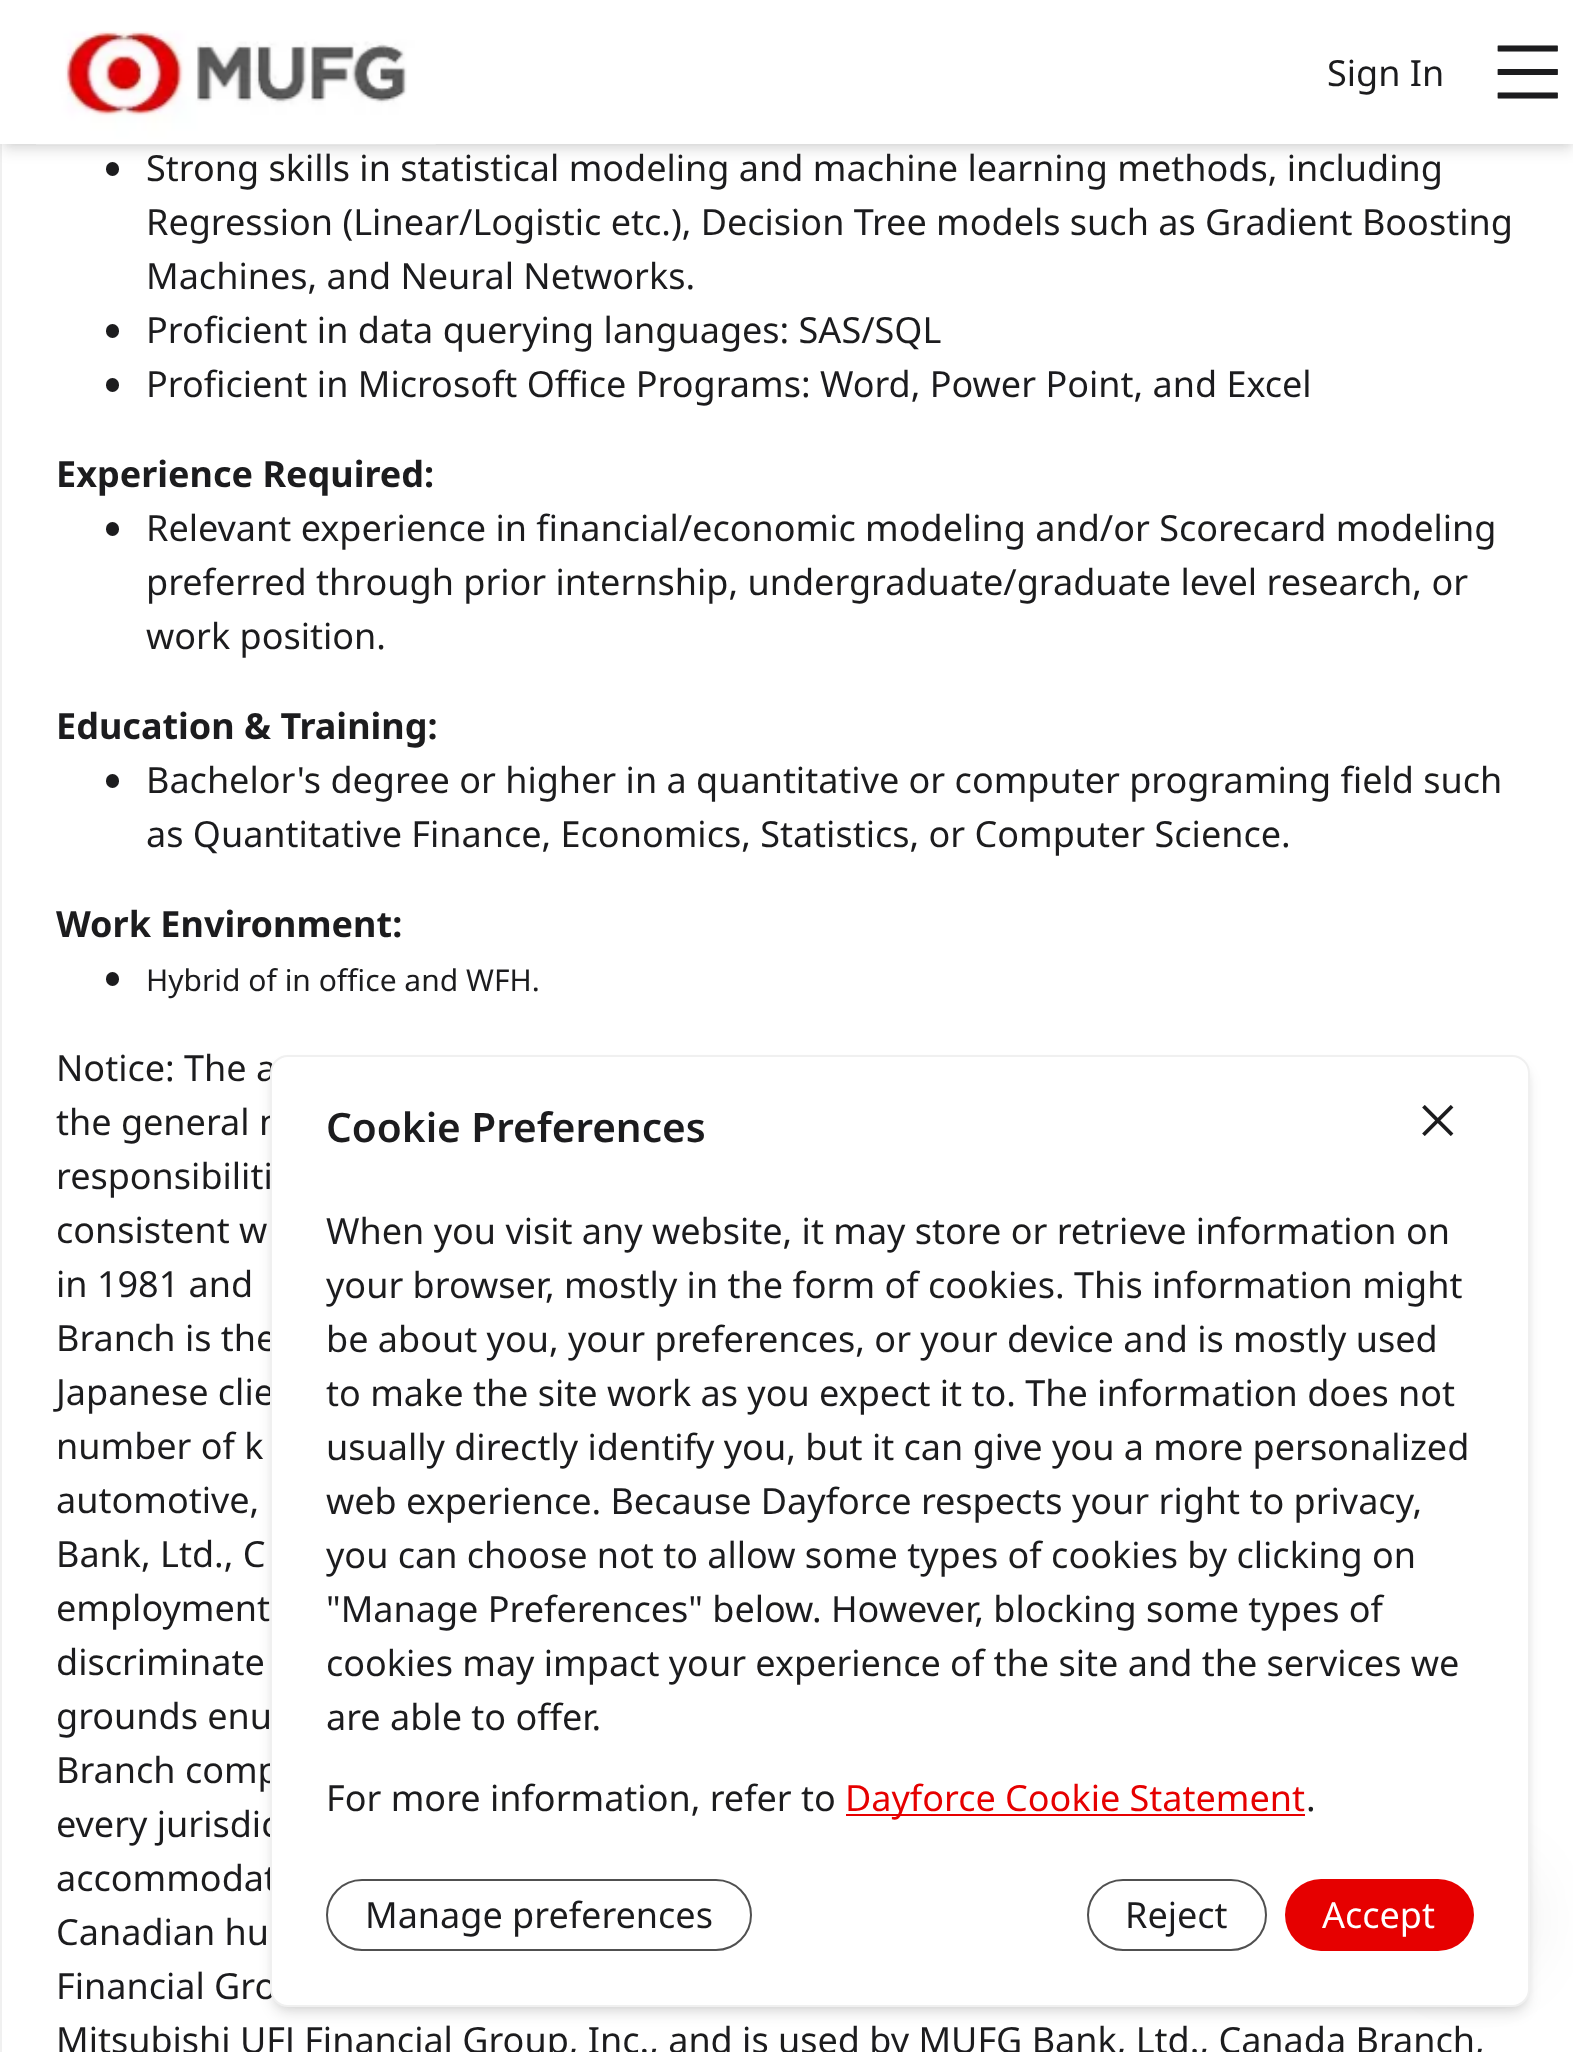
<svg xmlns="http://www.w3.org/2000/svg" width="1573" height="2052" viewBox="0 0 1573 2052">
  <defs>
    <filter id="blur1" x="-50%" y="-200%" width="200%" height="500%"><feGaussianBlur stdDeviation="4.5"/></filter>
    <filter id="blur2" x="-50%" y="-200%" width="200%" height="500%"><feGaussianBlur stdDeviation="7"/></filter>
    <filter id="blur3" x="-50%" y="-200%" width="200%" height="500%"><feGaussianBlur stdDeviation="31.5"/></filter>
  </defs>
  <rect width="100%" height="100%" fill="#ffffff"/>
  <rect x="1" y="-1" width="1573" height="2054" fill="none" stroke="#f0f0f0" stroke-width="2"/>
  <rect x="5" y="9" width="1566" height="135" fill="#000000" fill-opacity="0.1" filter="url(#blur1)"/>
  <rect x="106" y="162" width="13" height="14" rx="6.5" fill="#1c1c1e"/>
  <rect x="2" y="11" width="1571" height="140" fill="#000000" fill-opacity="0.1" filter="url(#blur2)"/>
  <rect x="0" y="0" width="1573" height="144" fill="#ffffff"/>
  <image x="36" y="30" width="400" height="115" href="img1.png"/>
  <text x="1327" y="86" font-family="Noto Sans" font-size="36" fill="#1c1c1e">Sign In</text>
  <image x="1497" y="45" width="61" height="54" href="img2.png"/>
  <text x="146" y="181" font-family="Noto Sans" font-size="36" fill="#1c1c1e">Strong skills in statistical modeling and machine learning methods, including</text>
  <text x="146" y="235" font-family="Noto Sans" font-size="36" fill="#1c1c1e">Regression (Linear/Logistic etc.), Decision Tree models such as Gradient Boosting</text>
  <text x="146" y="289" font-family="Noto Sans" font-size="36" fill="#1c1c1e">Machines, and Neural Networks.</text>
  <rect x="106" y="324" width="13" height="14" rx="6.5" fill="#1c1c1e"/>
  <text x="146" y="343" font-family="Noto Sans" font-size="36" fill="#1c1c1e">Proficient in data querying languages: SAS/SQL</text>
  <rect x="106" y="378" width="13" height="14" rx="6.5" fill="#1c1c1e"/>
  <text x="146" y="397" font-family="Noto Sans" font-size="36" fill="#1c1c1e">Proficient in Microsoft Office Programs: Word, Power Point, and Excel</text>
  <text x="56" y="487" font-family="Noto Sans" font-size="36" font-weight="bold" fill="#1c1c1e">Experience Required:</text>
  <rect x="106" y="522" width="13" height="14" rx="6.5" fill="#1c1c1e"/>
  <text x="146" y="541" font-family="Noto Sans" font-size="36" fill="#1c1c1e">Relevant experience in financial/economic modeling and/or Scorecard modeling</text>
  <text x="146" y="595" font-family="Noto Sans" font-size="36" fill="#1c1c1e">preferred through prior internship, undergraduate/graduate level research, or</text>
  <text x="146" y="649" font-family="Noto Sans" font-size="36" fill="#1c1c1e">work position.</text>
  <text x="56" y="739" font-family="Noto Sans" font-size="36" font-weight="bold" fill="#1c1c1e">Education &amp; Training:</text>
  <rect x="106" y="774" width="13" height="14" rx="6.5" fill="#1c1c1e"/>
  <text x="146" y="793" font-family="Noto Sans" font-size="36" fill="#1c1c1e">Bachelor's degree or higher in a quantitative or computer programing field such</text>
  <text x="146" y="847" font-family="Noto Sans" font-size="36" fill="#1c1c1e">as Quantitative Finance, Economics, Statistics, or Computer Science.</text>
  <text x="56" y="937" font-family="Noto Sans" font-size="36" font-weight="bold" fill="#1c1c1e">Work Environment:</text>
  <rect x="106" y="972" width="13" height="14" rx="6.5" fill="#1c1c1e"/>
  <text x="146" y="991" font-family="Noto Sans" font-size="30" fill="#1c1c1e">Hybrid of in office and WFH.</text>
  <text x="56" y="1081" font-family="Noto Sans" font-size="36" fill="#1c1c1e">Notice: The a</text>
  <text x="56" y="1135" font-family="Noto Sans" font-size="36" fill="#1c1c1e">the general n</text>
  <text x="56" y="1189" font-family="Noto Sans" font-size="36" fill="#1c1c1e">responsibiliti</text>
  <text x="56" y="1243" font-family="Noto Sans" font-size="36" fill="#1c1c1e">consistent w</text>
  <text x="56" y="1297" font-family="Noto Sans" font-size="36" fill="#1c1c1e">in 1981 and</text>
  <text x="56" y="1351" font-family="Noto Sans" font-size="36" fill="#1c1c1e">Branch is the</text>
  <text x="56" y="1405" font-family="Noto Sans" font-size="36" fill="#1c1c1e">Japanese clie</text>
  <text x="56" y="1459" font-family="Noto Sans" font-size="36" fill="#1c1c1e">number of k</text>
  <text x="56" y="1513" font-family="Noto Sans" font-size="36" fill="#1c1c1e">automotive,</text>
  <text x="56" y="1567" font-family="Noto Sans" font-size="36" fill="#1c1c1e">Bank, Ltd., C</text>
  <text x="56" y="1621" font-family="Noto Sans" font-size="36" fill="#1c1c1e">employment</text>
  <text x="56" y="1675" font-family="Noto Sans" font-size="36" fill="#1c1c1e">discriminate</text>
  <text x="56" y="1729" font-family="Noto Sans" font-size="36" fill="#1c1c1e">grounds enu</text>
  <text x="56" y="1783" font-family="Noto Sans" font-size="36" fill="#1c1c1e">Branch comp</text>
  <text x="56" y="1837" font-family="Noto Sans" font-size="36" fill="#1c1c1e">every jurisdic</text>
  <text x="56" y="1891" font-family="Noto Sans" font-size="36" fill="#1c1c1e">accommodat</text>
  <text x="56" y="1945" font-family="Noto Sans" font-size="36" fill="#1c1c1e">Canadian hu</text>
  <text x="56" y="1999" font-family="Noto Sans" font-size="36" fill="#1c1c1e">Financial Gro</text>
  <text x="56" y="2053" font-family="Noto Sans" font-size="36" fill="#1c1c1e">Mitsubishi UFJ Financial Group, Inc., and is used by MUFG Bank, Ltd., Canada Branch,</text>
  <rect x="1413" y="1856" width="126" height="126" rx="63" fill="#000000" fill-opacity="0.05" filter="url(#blur3)"/>
  <rect x="275" y="1064" width="1251" height="943" rx="14" fill="#000000" fill-opacity="0.1" filter="url(#blur1)"/>
  <rect x="272" y="1067" width="1256" height="947" rx="16" fill="#000000" fill-opacity="0.1" filter="url(#blur2)"/>
  <rect x="271" y="1056" width="1258" height="950" rx="17" fill="#ffffff" stroke="#f0f0f0" stroke-width="2"/>
  <text x="326" y="1142" font-family="Noto Sans" font-size="40.5" font-weight="600" fill="#1c1c1e">Cookie Preferences</text>
  <image x="1422" y="1105" width="32" height="31" href="img3.png"/>
  <text x="326" y="1244" font-family="Noto Sans" font-size="36" fill="#1c1c1e">When you visit any website, it may store or retrieve information on</text>
  <text x="326" y="1298" font-family="Noto Sans" font-size="36" fill="#1c1c1e">your browser, mostly in the form of cookies. This information might</text>
  <text x="326" y="1352" font-family="Noto Sans" font-size="36" fill="#1c1c1e">be about you, your preferences, or your device and is mostly used</text>
  <text x="326" y="1406" font-family="Noto Sans" font-size="36" fill="#1c1c1e">to make the site work as you expect it to. The information does not</text>
  <text x="326" y="1460" font-family="Noto Sans" font-size="36" fill="#1c1c1e">usually directly identify you, but it can give you a more personalized</text>
  <text x="326" y="1514" font-family="Noto Sans" font-size="36" fill="#1c1c1e">web experience. Because Dayforce respects your right to privacy,</text>
  <text x="326" y="1568" font-family="Noto Sans" font-size="36" fill="#1c1c1e">you can choose not to allow some types of cookies by clicking on</text>
  <text x="326" y="1622" font-family="Noto Sans" font-size="36" fill="#1c1c1e">"Manage Preferences" below. However, blocking some types of</text>
  <text x="326" y="1676" font-family="Noto Sans" font-size="36" fill="#1c1c1e">cookies may impact your experience of the site and the services we</text>
  <text x="326" y="1730" font-family="Noto Sans" font-size="36" fill="#1c1c1e">are able to offer.</text>
  <text x="326" y="1811" font-family="Noto Sans" font-size="36" fill="#1c1c1e">For more information, refer to</text>
  <rect x="846" y="1814" width="459" height="2" fill="#e60000"/>
  <text x="845" y="1811" font-family="Noto Sans" font-size="36" fill="#e60000">Dayforce Cookie Statement</text>
  <text x="1306" y="1811" font-family="Noto Sans" font-size="36" fill="#1c1c1e">.</text>
  <rect x="327" y="1880" width="424" height="70" rx="35" fill="none" stroke="#505050" stroke-width="2"/>
  <text x="365" y="1928" font-family="Noto Sans" font-size="36" fill="#1c1c1e">Manage preferences</text>
  <rect x="1088" y="1880" width="178" height="70" rx="35" fill="none" stroke="#505050" stroke-width="2"/>
  <text x="1125" y="1928" font-family="Noto Sans" font-size="36" fill="#1c1c1e">Reject</text>
  <rect x="1285" y="1879" width="189" height="72" rx="36" fill="#e60000"/>
  <text x="1322" y="1928" font-family="Noto Sans" font-size="36" fill="#ffffff">Accept</text>
</svg>
